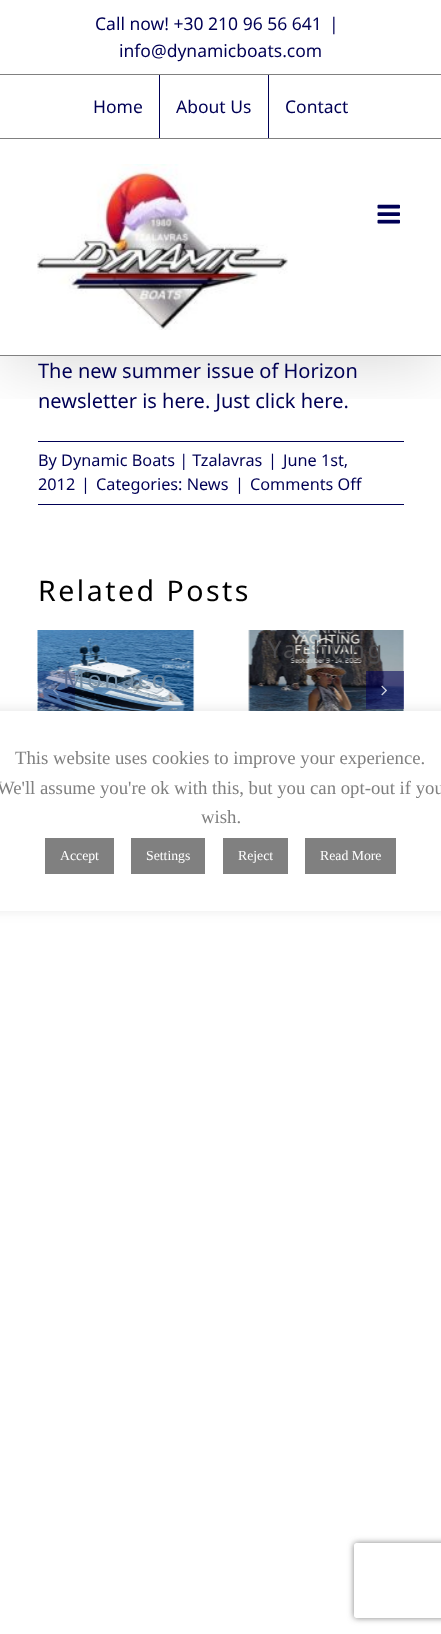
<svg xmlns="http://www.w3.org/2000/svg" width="441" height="1634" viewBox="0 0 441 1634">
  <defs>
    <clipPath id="clip1"><rect x="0" y="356" width="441" height="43"/></clipPath>
    <filter id="blur1" x="-50%" y="-200%" width="200%" height="500%"><feGaussianBlur stdDeviation="31"/></filter>
    <filter id="blur2" x="-50%" y="-200%" width="200%" height="500%"><feGaussianBlur stdDeviation="6"/></filter>
    <clipPath id="clip2"><path d="M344 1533H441V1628H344ZM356.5 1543H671.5C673 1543 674 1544 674 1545.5V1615.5C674 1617 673 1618 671.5 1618H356.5C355 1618 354 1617 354 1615.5V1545.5C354 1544 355 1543 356.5 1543Z" clip-rule="evenodd"/></clipPath>
    <filter id="blur3" x="-50%" y="-200%" width="200%" height="500%"><feGaussianBlur stdDeviation="3"/></filter>
  </defs>
  <rect width="100%" height="100%" fill="#ffffff"/>
  <rect x="38" y="441" width="366" height="1" fill="#000055"/>
  <g clip-path="url(#clip1)">
    <rect x="3" y="15" width="436" height="351" fill="#000000" fill-opacity="0.14" filter="url(#blur1)"/>
  </g>
  <rect x="0" y="138" width="441" height="1" fill="#808080"/>
  <rect x="0" y="74" width="441" height="1" fill="#808080"/>
  <text x="95" y="30" font-family="Noto Sans" font-size="17.5" fill="#000055">Call now! +30 210 96 56 641</text>
  <text x="329" y="30" font-family="Noto Sans" font-size="17.5" fill="#000055">|</text>
  <text x="119" y="57" font-family="Noto Sans" font-size="17.5" fill="#000055">info@dynamicboats.com</text>
  <text x="93" y="113" font-family="Noto Sans" font-size="17.5" fill="#000055">Home</text>
  <rect x="159" y="75" width="1" height="63" fill="#000055"/>
  <text x="176" y="113" font-family="Noto Sans" font-size="17.5" fill="#000055">About Us</text>
  <rect x="268" y="75" width="1" height="63" fill="#000055"/>
  <text x="285" y="113" font-family="Noto Sans" font-size="17.5" fill="#000055">Contact</text>
  <rect x="0" y="355" width="441" height="1" fill="#808080"/>
  <image x="37" y="164" width="251" height="166" href="img1.png"/>
  <image x="377" y="204" width="23" height="20" href="img2.png"/>
  <text x="38" y="378" font-family="Noto Sans" font-size="20" fill="#000055">The new summer issue of Horizon</text>
  <text x="38" y="408" font-family="Noto Sans" font-size="20" fill="#000055">newsletter is here. Just click here.</text>
  <rect x="38" y="504" width="366" height="1" fill="#000055"/>
  <text x="38" y="466" font-family="Noto Sans" font-size="16.25" fill="#000055">By Dynamic Boats | Tzalavras</text>
  <text x="268" y="466" font-family="Noto Sans" font-size="16.25" fill="#000055">|</text>
  <text x="283" y="466" font-family="Noto Sans" font-size="16.25" fill="#000055">June 1st,</text>
  <text x="38" y="490" font-family="Noto Sans" font-size="16.25" fill="#000055">2012</text>
  <text x="81" y="490" font-family="Noto Sans" font-size="16.25" fill="#000055">|</text>
  <text x="96" y="490" font-family="Noto Sans" font-size="16.25" fill="#000055">Categories: News</text>
  <text x="235" y="490" font-family="Noto Sans" font-size="16.25" fill="#000055">|</text>
  <text x="250" y="490" font-family="Noto Sans" font-size="16.25" fill="#000055">Comments Off</text>
  <text x="38" y="601" font-family="Noto Sans" font-size="28.5" letter-spacing="2.5" fill="#000000">Related Posts</text>
  <image x="37" y="630" width="158" height="81" href="img5.png"/>
  <text x="63" y="688" font-family="Noto Sans" font-size="24" letter-spacing="2.5" fill="#728aa0">Monaco</text>
  <rect x="38" y="671" width="37" height="38" fill="#000057" fill-opacity="0.24"/>
  <image x="53" y="685" width="6" height="11" href="img3.png"/>
  <image x="248" y="630" width="156" height="81" href="img4.png"/>
  <text x="268" y="658" font-family="Noto Sans" font-size="24" letter-spacing="2.5" fill="#4d4d50">Yachting</text>
  <rect x="366" y="671" width="38" height="38" fill="#000057" fill-opacity="0.56"/>
  <image x="381" y="685" width="6" height="11" href="img6.png"/>
  <rect x="-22" y="710" width="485" height="200" rx="4" fill="#acabab" fill-opacity="0.3" filter="url(#blur2)"/>
  <rect x="0" y="711" width="441" height="200" fill="#ffffff"/>
  <text x="15" y="764" font-family="Liberation Serif" font-size="18.75" fill="#808080">This website uses cookies to improve your experience.</text>
  <text x="-3" y="794" font-family="Liberation Serif" font-size="18.75" fill="#808080">We'll assume you're ok with this, but you can opt-out if you</text>
  <text x="201" y="823" font-family="Liberation Serif" font-size="18.75" fill="#808080">wish.</text>
  <rect x="45" y="838" width="69" height="36" fill="#808080"/>
  <text x="60" y="860" font-family="Liberation Serif" font-size="13.75" fill="#ffffff">Accept</text>
  <rect x="131" y="838" width="74" height="36" fill="#808080"/>
  <text x="146" y="860" font-family="Liberation Serif" font-size="13.75" fill="#ffffff">Settings</text>
  <rect x="223" y="838" width="65" height="36" fill="#808080"/>
  <text x="238" y="860" font-family="Liberation Serif" font-size="13.75" fill="#ffffff">Reject</text>
  <rect x="305" y="838" width="91" height="36" fill="#808080"/>
  <text x="320" y="860" font-family="Liberation Serif" font-size="13.75" fill="#ffffff">Read More</text>
  <g clip-path="url(#clip2)">
    <rect x="354" y="1543" width="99" height="75" rx="2.5" fill="#808080" filter="url(#blur3)"/>
  </g>
</svg>
